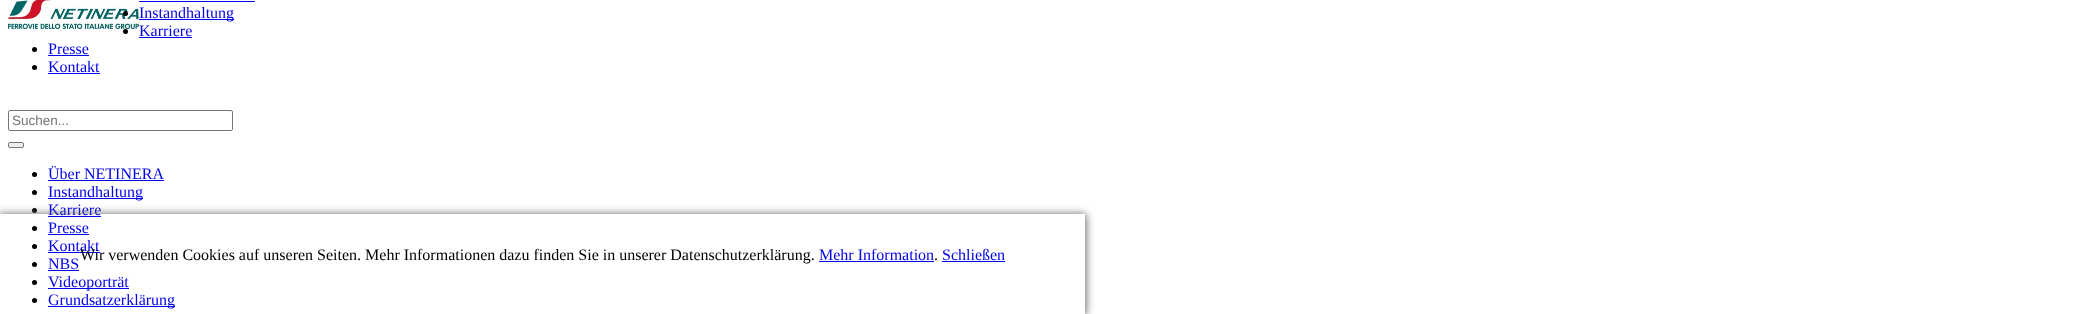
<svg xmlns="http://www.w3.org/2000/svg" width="2094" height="314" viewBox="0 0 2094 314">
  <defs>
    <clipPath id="clip1"><path d="M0 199H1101V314H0ZM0 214H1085V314H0Z" clip-rule="evenodd"/></clipPath>
    <filter id="blur1" x="-50%" y="-200%" width="200%" height="500%"><feGaussianBlur stdDeviation="4.5"/></filter>
  </defs>
  <rect width="100%" height="100%" fill="#ffffff"/>
  <image x="8" y="0" width="131" height="29" href="img1.png"/>
  <rect x="139" y="1" width="116" height="1" fill="#0000ee"/>
  <circle cx="125.5" cy="13.5" r="2.5" fill="#000000"/>
  <rect x="139" y="19" width="95" height="1" fill="#0000ee"/>
  <text x="139" y="18" font-family="Liberation Serif" font-size="16" fill="#0000ee">Instandhaltung</text>
  <circle cx="125.5" cy="31.5" r="2.5" fill="#000000"/>
  <text x="139" y="36" font-family="Liberation Serif" font-size="16" fill="#0000ee">Karriere</text>
  <rect x="139" y="37" width="53" height="1" fill="#0000ee"/>
  <circle cx="34.5" cy="49.5" r="2.5" fill="#000000"/>
  <text x="48" y="54" font-family="Liberation Serif" font-size="16" fill="#0000ee">Presse</text>
  <rect x="48" y="55" width="41" height="1" fill="#0000ee"/>
  <circle cx="34.5" cy="67.5" r="2.5" fill="#000000"/>
  <text x="48" y="72" font-family="Liberation Serif" font-size="16" fill="#0000ee">Kontakt</text>
  <rect x="48" y="73" width="52" height="1" fill="#0000ee"/>
  <rect x="8.5" y="110.5" width="224" height="20" rx="1.5" fill="none" stroke="#767676"/>
  <text x="12" y="125" font-family="Liberation Sans" font-size="13.5" fill="#757575">Suchen...</text>
  <rect x="8.5" y="142.5" width="15" height="5" rx="1.5" fill="#efefef" stroke="#767676"/>
  <circle cx="34.5" cy="174.5" r="2.5" fill="#000000"/>
  <text x="48" y="179" font-family="Liberation Serif" font-size="16" fill="#0000ee">Über NETINERA</text>
  <rect x="48" y="180" width="116" height="1" fill="#0000ee"/>
  <circle cx="34.5" cy="192.5" r="2.5" fill="#000000"/>
  <rect x="48" y="198" width="95" height="1" fill="#0000ee"/>
  <text x="48" y="197" font-family="Liberation Serif" font-size="16" fill="#0000ee">Instandhaltung</text>
  <circle cx="34.5" cy="210.5" r="2.5" fill="#000000"/>
  <text x="48" y="215" font-family="Liberation Serif" font-size="16" fill="#0000ee">Karriere</text>
  <rect x="48" y="216" width="53" height="1" fill="#0000ee"/>
  <circle cx="34.5" cy="228.5" r="2.5" fill="#000000"/>
  <text x="48" y="233" font-family="Liberation Serif" font-size="16" fill="#0000ee">Presse</text>
  <rect x="48" y="234" width="41" height="1" fill="#0000ee"/>
  <circle cx="34.5" cy="246.5" r="2.5" fill="#000000"/>
  <text x="48" y="251" font-family="Liberation Serif" font-size="16" fill="#0000ee">Kontakt</text>
  <rect x="48" y="252" width="52" height="1" fill="#0000ee"/>
  <circle cx="34.5" cy="264.5" r="2.5" fill="#000000"/>
  <text x="48" y="269" font-family="Liberation Serif" font-size="16" fill="#0000ee">NBS</text>
  <rect x="48" y="270" width="31" height="1" fill="#0000ee"/>
  <circle cx="34.5" cy="282.5" r="2.5" fill="#000000"/>
  <rect x="48" y="288" width="81" height="1" fill="#0000ee"/>
  <text x="48" y="287" font-family="Liberation Serif" font-size="16" fill="#0000ee">Videoporträt</text>
  <circle cx="34.5" cy="300.5" r="2.5" fill="#000000"/>
  <rect x="48" y="306" width="127" height="1" fill="#0000ee"/>
  <text x="48" y="305" font-family="Liberation Serif" font-size="16" fill="#0000ee">Grundsatzerklärung</text>
  <g clip-path="url(#clip1)">
    <rect x="-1" y="214" width="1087" height="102" fill="#666666" filter="url(#blur1)"/>
  </g>
  <text x="80" y="260" font-family="Liberation Serif" font-size="16" fill="#000000">Wir verwenden Cookies auf unseren Seiten. Mehr Informationen dazu finden Sie in unserer Datenschutzerklärung.</text>
  <text x="819" y="260" font-family="Liberation Serif" font-size="16" fill="#0000ee">Mehr Information</text>
  <rect x="819" y="261" width="115" height="1" fill="#0000ee"/>
  <text x="934" y="260" font-family="Liberation Serif" font-size="16" fill="#000000">.</text>
  <text x="942" y="260" font-family="Liberation Serif" font-size="16" fill="#0000ee">Schließen</text>
  <rect x="942" y="261" width="63" height="1" fill="#0000ee"/>
</svg>
